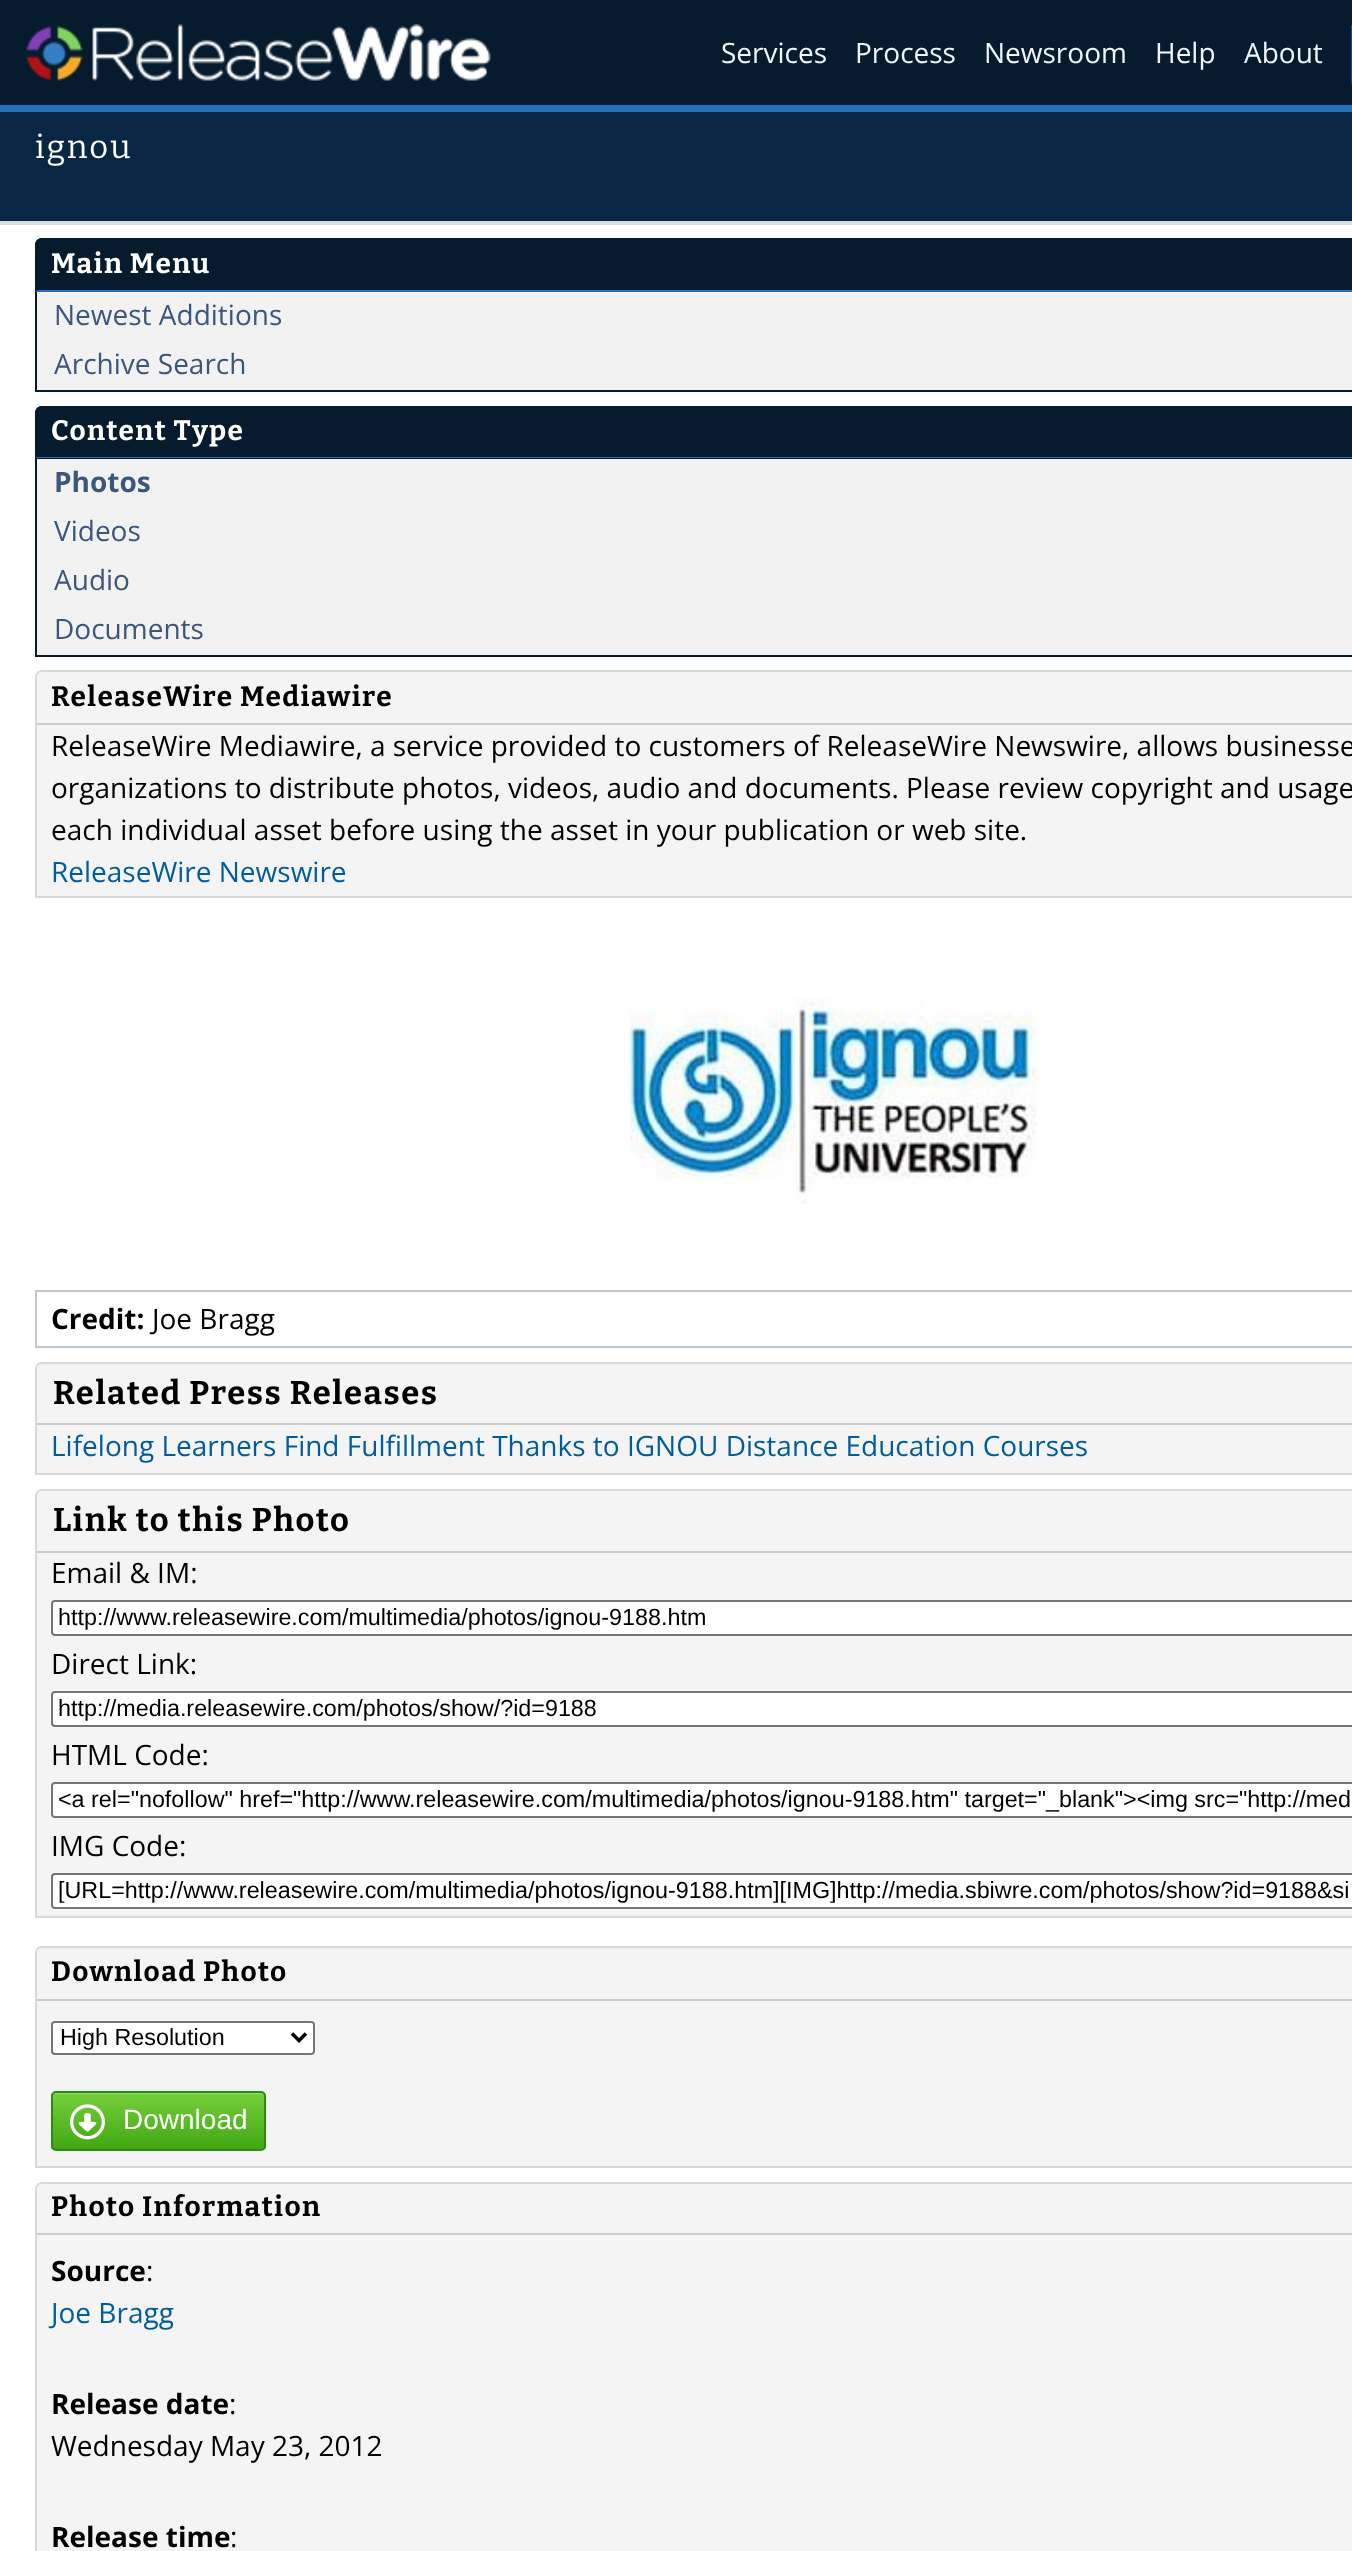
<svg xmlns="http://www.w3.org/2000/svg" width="1352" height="2551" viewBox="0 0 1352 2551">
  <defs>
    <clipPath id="clip1"><rect x="51" y="2091" width="215" height="60" rx="5"/></clipPath>
    <linearGradient id="g1" gradientUnits="userSpaceOnUse" x1="158" y1="2093" x2="158" y2="2149"><stop offset="0" stop-color="#8de579"/><stop offset="0.03" stop-color="#74ce39"/><stop offset="1" stop-color="#42a715"/></linearGradient>
  </defs>
  <rect width="100%" height="100%" fill="#ffffff"/>
  <rect x="0" y="0" width="1352" height="105" fill="#061b2d"/>
  <rect x="0" y="105" width="1352" height="7" fill="#266fbc"/>
  <image x="25" y="24" width="466" height="57" href="img1.png"/>
  <text x="721" y="63" font-family="Open Sans" font-size="28" fill="#eff5fb">Services</text>
  <text x="855" y="63" font-family="Open Sans" font-size="28" fill="#eff5fb">Process</text>
  <text x="984" y="63" font-family="Open Sans" font-size="28" fill="#eff5fb">Newsroom</text>
  <text x="1155" y="63" font-family="Open Sans" font-size="28" fill="#eff5fb">Help</text>
  <text x="1244" y="63" font-family="Open Sans" font-size="28" fill="#eff5fb">About</text>
  <path d="M1351 80V84H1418V28V80Z" fill="#103e6a"/>
  <rect x="1351" y="25" width="1" height="56" fill="#134e87"/>
  <rect x="0" y="112" width="1352" height="109" fill="#092744"/>
  <rect x="0" y="221" width="1352" height="4" fill="#dadde0"/>
  <text x="35" y="158" font-family="Bitter" font-size="32.75" letter-spacing="2" fill="#ffffff">ignou</text>
  <path d="M42 238H1352C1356 238 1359 241 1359 245V292H35V245C35 241 38 238 42 238Z" fill="#061b2d"/>
  <path d="M42 238C40 238 38 239 37 240L38 241C39 240 40 240 42 240H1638C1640 240 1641 240 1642 241L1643 240C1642 239 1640 238 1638 238Z" fill="#061b2d"/>
  <path d="M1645 292H35L37 290H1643Z" fill="#266fbc"/>
  <path d="M35 245V292L37 290V245C37 244 38 242 38 241L37 240C36 241 35 243 35 245Z" fill="#061b2d"/>
  <text x="51" y="273" font-family="Bitter" font-size="28" font-weight="bold" letter-spacing="1.4" fill="#ffffff">Main Menu</text>
  <rect x="37" y="292" width="1315" height="98" fill="#f2f2f2"/>
  <rect x="35" y="390" width="1317" height="2" fill="#061b2d"/>
  <rect x="35" y="292" width="2" height="100" fill="#061b2d"/>
  <text x="54" y="325" font-family="Open Sans" font-size="28" fill="#3d567b">Newest Additions</text>
  <text x="54" y="374" font-family="Open Sans" font-size="28" fill="#3d567b">Archive Search</text>
  <path d="M42 406H1352C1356 406 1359 409 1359 413V459H35V413C35 409 38 406 42 406Z" fill="#061b2d"/>
  <path d="M42 406C40 406 38 407 37 408L38 409C39 408 40 408 42 408H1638C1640 408 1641 408 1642 409L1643 408C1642 407 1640 406 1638 406Z" fill="#061b2d"/>
  <path d="M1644 458H36L37 456V457H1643V456Z" fill="#266fbc"/>
  <path d="M35 413V458L37 456V413C37 412 38 410 38 409L37 408C36 409 35 411 35 413Z" fill="#061b2d"/>
  <text x="51" y="440" font-family="Bitter" font-size="28" font-weight="bold" letter-spacing="1.4" fill="#ffffff">Content Type</text>
  <rect x="37" y="459" width="1315" height="196" fill="#f2f2f2"/>
  <rect x="35" y="655" width="1317" height="2" fill="#061b2d"/>
  <rect x="35" y="459" width="2" height="197" fill="#061b2d"/>
  <text x="54" y="492" font-family="Open Sans" font-size="28" font-weight="bold" fill="#3d567b">Photos</text>
  <text x="54" y="541" font-family="Open Sans" font-size="28" fill="#3d567b">Videos</text>
  <text x="54" y="590" font-family="Open Sans" font-size="28" fill="#3d567b">Audio</text>
  <text x="54" y="639" font-family="Open Sans" font-size="28" fill="#3d567b">Documents</text>
  <path d="M42 671H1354C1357.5 671 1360 673.5 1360 677V897H36V677C36 673.5 38.5 671 42 671Z" fill="#f4f4f4" stroke="#d6d8da" stroke-width="2"/>
  <rect x="37" y="723" width="1315" height="2" fill="#cccccc"/>
  <text x="51" y="706" font-family="Bitter" font-size="28" font-weight="bold" letter-spacing="1.4" fill="#000000">ReleaseWire Mediawire</text>
  <text x="51" y="756" font-family="Open Sans" font-size="28" fill="#000000">ReleaseWire Mediawire, a service provided to customers of ReleaseWire Newswire, allows businesse</text>
  <text x="51" y="798" font-family="Open Sans" font-size="28" fill="#000000">organizations to distribute photos, videos, audio and documents. Please review copyright and usage</text>
  <text x="51" y="840" font-family="Open Sans" font-size="28" fill="#000000">each individual asset before using the asset in your publication or web site.</text>
  <text x="51" y="882" font-family="Open Sans" font-size="28" fill="#005c9c">ReleaseWire Newswire</text>
  <image x="630" y="998" width="420" height="206" href="img2.png"/>
  <rect x="36" y="1291" width="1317" height="56" fill="none" stroke="#bdc8d1" stroke-width="2"/>
  <text x="51" y="1329" font-family="Open Sans" font-size="28" font-weight="bold" fill="#000000">Credit:</text>
  <text x="152" y="1329" font-family="Open Sans" font-size="28" fill="#000000">Joe Bragg</text>
  <path d="M42 1363H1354C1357.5 1363 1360 1365.5 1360 1369V1474H36V1369C36 1365.5 38.5 1363 42 1363Z" fill="#f4f4f4" stroke="#d6d8da" stroke-width="2"/>
  <rect x="37" y="1423" width="1315" height="2" fill="#cccccc"/>
  <text x="53" y="1404" font-family="Bitter" font-size="32.75" font-weight="bold" letter-spacing="1.6" fill="#000000">Related Press Releases</text>
  <text x="51" y="1456" font-family="Open Sans" font-size="28" fill="#005c9c">Lifelong Learners Find Fulfillment Thanks to IGNOU Distance Education Courses</text>
  <path d="M42 1490H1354C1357.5 1490 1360 1492.5 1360 1496V1917H36V1496C36 1492.5 38.5 1490 42 1490Z" fill="#f4f4f4" stroke="#d6d8da" stroke-width="2"/>
  <rect x="37" y="1551" width="1315" height="2" fill="#cccccc"/>
  <text x="53" y="1531" font-family="Bitter" font-size="32.75" font-weight="bold" letter-spacing="1.6" fill="#000000">Link to this Photo</text>
  <text x="51" y="1583" font-family="Open Sans" font-size="28" fill="#000000">Email &amp; IM:</text>
  <rect x="52" y="1601" width="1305" height="34" rx="3" fill="#ffffff" stroke="#767676" stroke-width="2"/>
  <text x="58" y="1625" font-family="Liberation Sans" font-size="23.33" fill="#000000">http://www.releasewire.com/multimedia/photos/ignou-9188.htm</text>
  <text x="51" y="1674" font-family="Open Sans" font-size="28" fill="#000000">Direct Link:</text>
  <rect x="52" y="1692" width="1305" height="34" rx="3" fill="#ffffff" stroke="#767676" stroke-width="2"/>
  <text x="58" y="1716" font-family="Liberation Sans" font-size="23.33" fill="#000000">http://media.releasewire.com/photos/show/?id=9188</text>
  <text x="51" y="1765" font-family="Open Sans" font-size="28" fill="#000000">HTML Code:</text>
  <rect x="52" y="1783" width="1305" height="34" rx="3" fill="#ffffff" stroke="#767676" stroke-width="2"/>
  <text x="58" y="1807" font-family="Liberation Sans" font-size="23.33" fill="#000000">&lt;a rel="nofollow" href="http://www.releasewire.com/multimedia/photos/ignou-9188.htm" target="_blank"&gt;&lt;img src="http://med</text>
  <text x="51" y="1856" font-family="Open Sans" font-size="28" fill="#000000">IMG Code:</text>
  <rect x="52" y="1874" width="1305" height="34" rx="3" fill="#ffffff" stroke="#767676" stroke-width="2"/>
  <text x="58" y="1898" font-family="Liberation Sans" font-size="23.33" fill="#000000">[URL=http://www.releasewire.com/multimedia/photos/ignou-9188.htm][IMG]http://media.sbiwre.com/photos/show?id=9188&amp;si</text>
  <path d="M42 1947H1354C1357.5 1947 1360 1949.5 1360 1953V2167H36V1953C36 1949.5 38.5 1947 42 1947Z" fill="#f4f4f4" stroke="#d6d8da" stroke-width="2"/>
  <rect x="37" y="1999" width="1315" height="2" fill="#cccccc"/>
  <text x="51" y="1981" font-family="Bitter" font-size="28" font-weight="bold" letter-spacing="1.4" fill="#000000">Download Photo</text>
  <rect x="52" y="2022" width="262" height="32" rx="3" fill="#ffffff" stroke="#767676" stroke-width="2"/>
  <path d="M292 2033.5L299 2040.5L306 2033.5" fill="none" stroke="#000000" stroke-width="3.5"/>
  <text x="60" y="2045" font-family="Liberation Sans" font-size="23.33" fill="#000000">High Resolution</text>
  <g clip-path="url(#clip1)">
    <rect x="51" y="2093" width="215" height="56" fill="url(#g1)"/>
  </g>
  <rect x="52" y="2092" width="213" height="58" rx="4" fill="none" stroke="#2f8b13" stroke-width="2"/>
  <image x="70" y="2104" width="35" height="36" href="img3.png"/>
  <text x="123" y="2129" font-family="Liberation Sans" font-size="28" fill="#ffffff">Download</text>
  <path d="M42 2183H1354C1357.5 2183 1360 2185.5 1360 2189V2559H36V2189C36 2185.5 38.5 2183 42 2183Z" fill="#f4f4f4" stroke="#d6d8da" stroke-width="2"/>
  <rect x="37" y="2233" width="1315" height="2" fill="#cccccc"/>
  <text x="51" y="2216" font-family="Bitter" font-size="28" font-weight="bold" letter-spacing="1.4" fill="#000000">Photo Information</text>
  <text x="51" y="2281" font-family="Open Sans" font-size="28" font-weight="bold" fill="#000000">Source</text>
  <text x="146" y="2281" font-family="Open Sans" font-size="28" fill="#000000">:</text>
  <text x="51" y="2323" font-family="Open Sans" font-size="28" fill="#005c9c">Joe Bragg</text>
  <text x="51" y="2414" font-family="Open Sans" font-size="28" font-weight="bold" fill="#000000">Release date</text>
  <text x="229" y="2414" font-family="Open Sans" font-size="28" fill="#000000">:</text>
  <text x="51" y="2456" font-family="Open Sans" font-size="28" fill="#000000">Wednesday May 23, 2012</text>
  <text x="51" y="2547" font-family="Open Sans" font-size="28" font-weight="bold" fill="#000000">Release time</text>
  <text x="230" y="2547" font-family="Open Sans" font-size="28" fill="#000000">:</text>
</svg>
